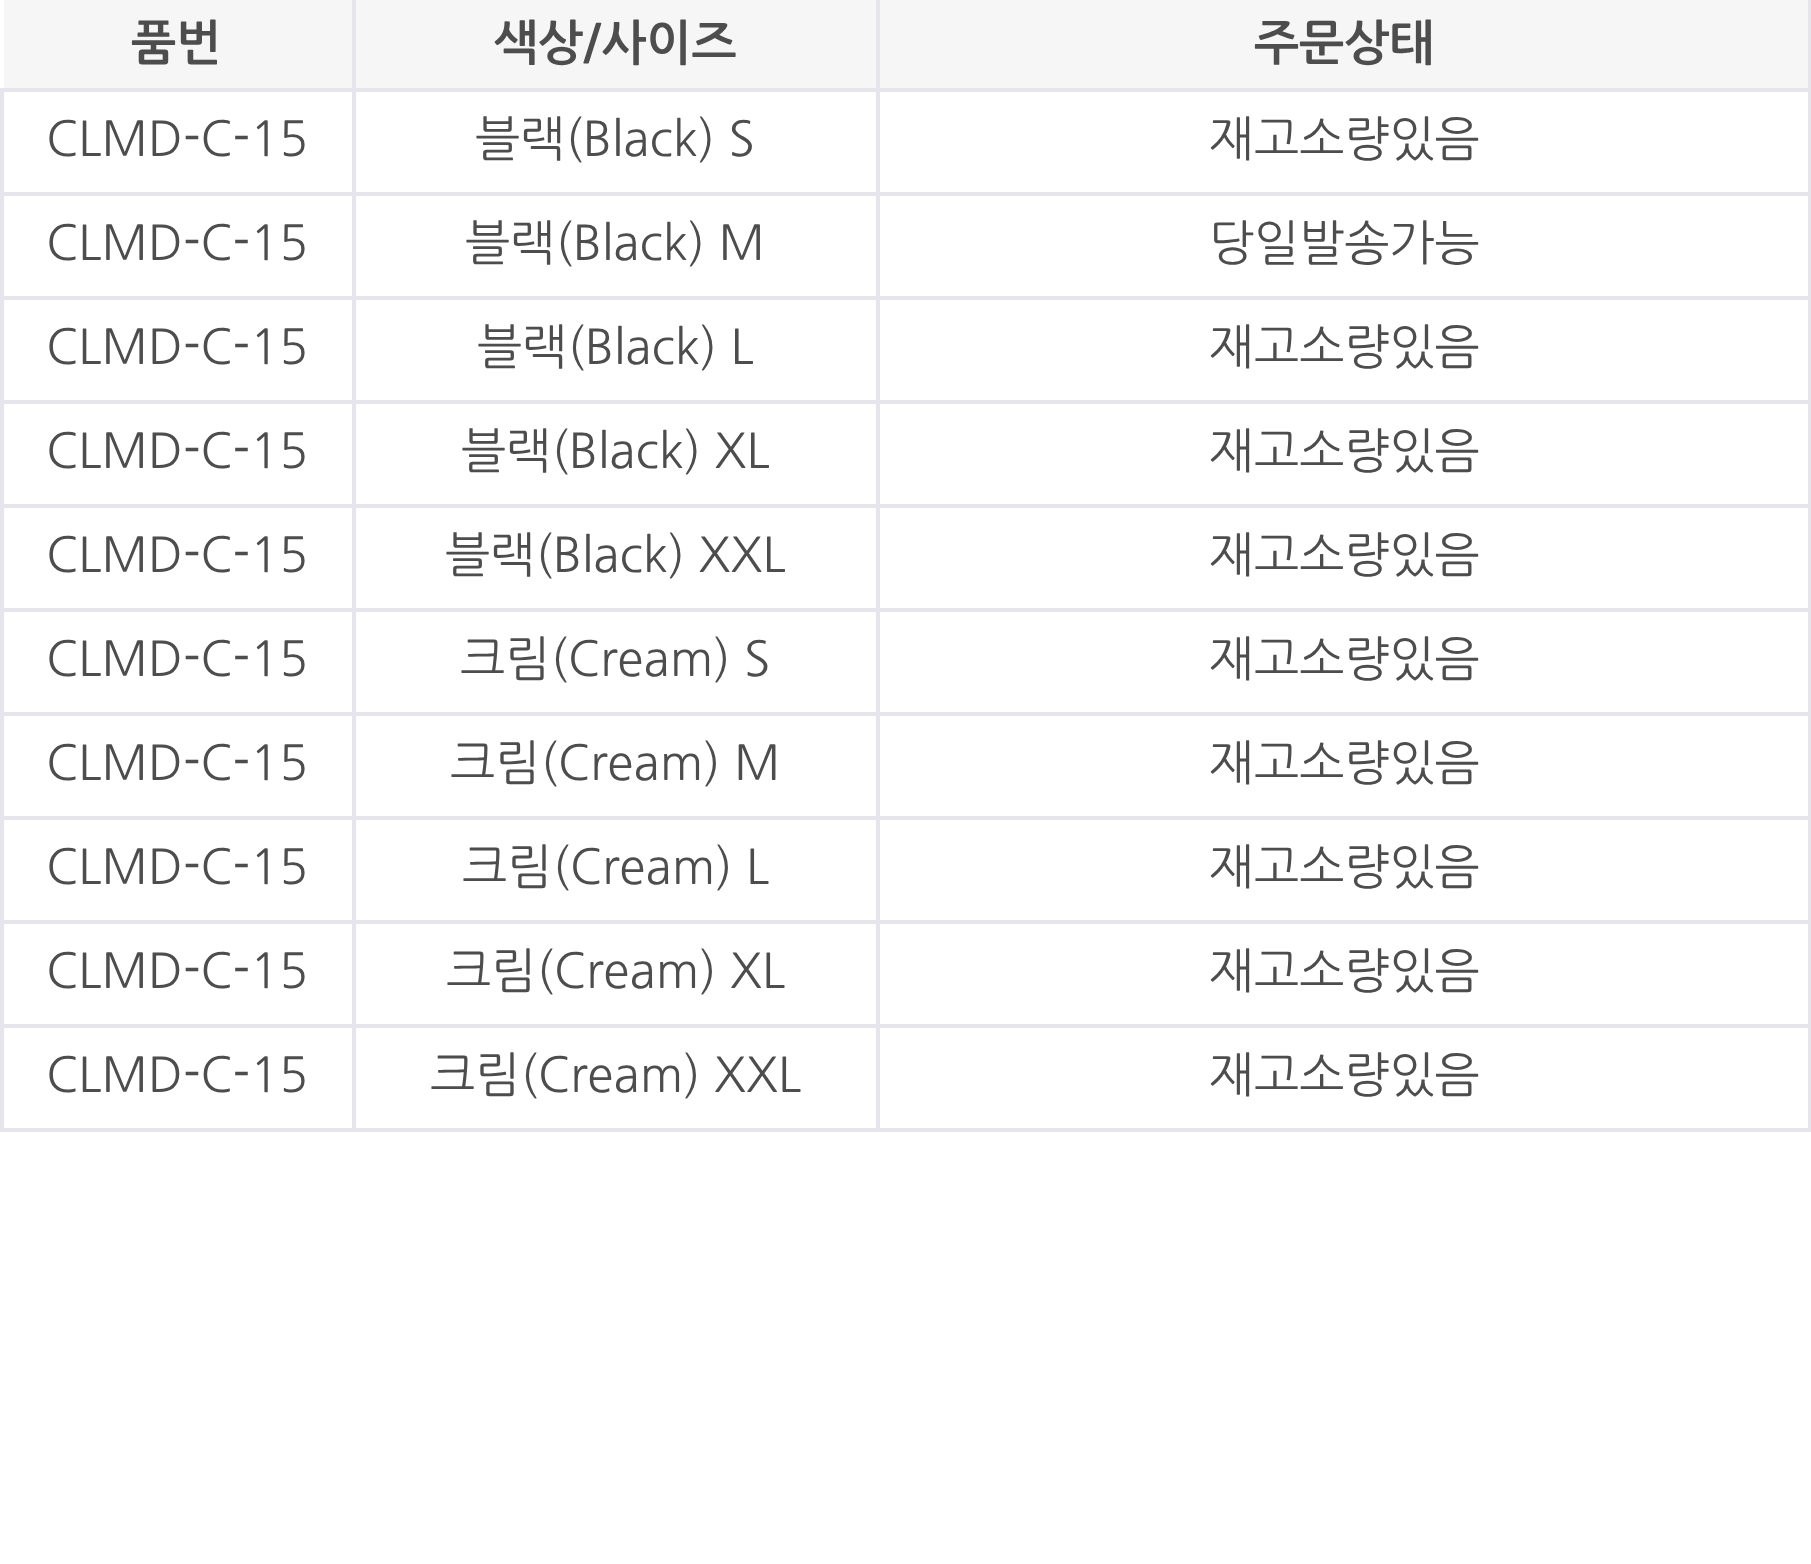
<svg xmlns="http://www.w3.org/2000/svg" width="1811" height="1564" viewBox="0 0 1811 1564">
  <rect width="100%" height="100%" fill="#ffffff"/>
  <rect x="4" y="0" width="348" height="88" fill="#f6f6f6"/>
  <rect x="1808" y="0" width="3" height="1132" fill="#e6e5eb"/>
  <rect x="876" y="1128" width="935" height="4" fill="#e6e5eb"/>
  <rect x="876" y="1024" width="4" height="108" fill="#e6e5eb"/>
  <rect x="876" y="1024" width="935" height="4" fill="#e6e5eb"/>
  <rect x="876" y="920" width="4" height="108" fill="#e6e5eb"/>
  <rect x="876" y="920" width="935" height="4" fill="#e6e5eb"/>
  <rect x="876" y="816" width="4" height="108" fill="#e6e5eb"/>
  <rect x="876" y="816" width="935" height="4" fill="#e6e5eb"/>
  <rect x="876" y="712" width="4" height="108" fill="#e6e5eb"/>
  <rect x="876" y="712" width="935" height="4" fill="#e6e5eb"/>
  <rect x="876" y="608" width="4" height="108" fill="#e6e5eb"/>
  <rect x="876" y="608" width="935" height="4" fill="#e6e5eb"/>
  <rect x="876" y="504" width="4" height="108" fill="#e6e5eb"/>
  <rect x="876" y="504" width="935" height="4" fill="#e6e5eb"/>
  <rect x="876" y="400" width="4" height="108" fill="#e6e5eb"/>
  <rect x="876" y="400" width="935" height="4" fill="#e6e5eb"/>
  <rect x="876" y="296" width="4" height="108" fill="#e6e5eb"/>
  <rect x="876" y="296" width="935" height="4" fill="#e6e5eb"/>
  <rect x="876" y="192" width="4" height="108" fill="#e6e5eb"/>
  <rect x="876" y="192" width="935" height="4" fill="#e6e5eb"/>
  <rect x="876" y="88" width="4" height="108" fill="#e6e5eb"/>
  <rect x="876" y="88" width="935" height="4" fill="#e6e5eb"/>
  <rect x="876" y="0" width="4" height="92" fill="#e6e5eb"/>
  <rect x="352" y="1128" width="528" height="4" fill="#e6e5eb"/>
  <rect x="352" y="1024" width="4" height="108" fill="#e6e5eb"/>
  <rect x="352" y="1024" width="528" height="4" fill="#e6e5eb"/>
  <rect x="352" y="920" width="4" height="108" fill="#e6e5eb"/>
  <rect x="352" y="920" width="528" height="4" fill="#e6e5eb"/>
  <rect x="352" y="816" width="4" height="108" fill="#e6e5eb"/>
  <rect x="352" y="816" width="528" height="4" fill="#e6e5eb"/>
  <rect x="352" y="712" width="4" height="108" fill="#e6e5eb"/>
  <rect x="352" y="712" width="528" height="4" fill="#e6e5eb"/>
  <rect x="352" y="608" width="4" height="108" fill="#e6e5eb"/>
  <rect x="352" y="608" width="528" height="4" fill="#e6e5eb"/>
  <rect x="352" y="504" width="4" height="108" fill="#e6e5eb"/>
  <rect x="352" y="504" width="528" height="4" fill="#e6e5eb"/>
  <rect x="352" y="400" width="4" height="108" fill="#e6e5eb"/>
  <rect x="352" y="400" width="528" height="4" fill="#e6e5eb"/>
  <rect x="352" y="296" width="4" height="108" fill="#e6e5eb"/>
  <rect x="352" y="296" width="528" height="4" fill="#e6e5eb"/>
  <rect x="352" y="192" width="4" height="108" fill="#e6e5eb"/>
  <rect x="352" y="192" width="528" height="4" fill="#e6e5eb"/>
  <rect x="352" y="88" width="4" height="108" fill="#e6e5eb"/>
  <rect x="352" y="88" width="528" height="4" fill="#e6e5eb"/>
  <rect x="352" y="0" width="4" height="92" fill="#e6e5eb"/>
  <rect x="0" y="1128" width="356" height="4" fill="#e6e5eb"/>
  <rect x="0" y="1024" width="4" height="108" fill="#e6e5eb"/>
  <rect x="0" y="1024" width="356" height="4" fill="#e6e5eb"/>
  <rect x="0" y="920" width="4" height="108" fill="#e6e5eb"/>
  <rect x="0" y="920" width="356" height="4" fill="#e6e5eb"/>
  <rect x="0" y="816" width="4" height="108" fill="#e6e5eb"/>
  <rect x="0" y="816" width="356" height="4" fill="#e6e5eb"/>
  <rect x="0" y="712" width="4" height="108" fill="#e6e5eb"/>
  <rect x="0" y="712" width="356" height="4" fill="#e6e5eb"/>
  <rect x="0" y="608" width="4" height="108" fill="#e6e5eb"/>
  <rect x="0" y="608" width="356" height="4" fill="#e6e5eb"/>
  <rect x="0" y="504" width="4" height="108" fill="#e6e5eb"/>
  <rect x="0" y="504" width="356" height="4" fill="#e6e5eb"/>
  <rect x="0" y="400" width="4" height="108" fill="#e6e5eb"/>
  <rect x="0" y="400" width="356" height="4" fill="#e6e5eb"/>
  <rect x="0" y="296" width="4" height="108" fill="#e6e5eb"/>
  <rect x="0" y="296" width="356" height="4" fill="#e6e5eb"/>
  <rect x="0" y="192" width="4" height="108" fill="#e6e5eb"/>
  <rect x="0" y="192" width="356" height="4" fill="#e6e5eb"/>
  <rect x="0" y="88" width="4" height="108" fill="#e6e5eb"/>
  <rect x="0" y="88" width="356" height="4" fill="#e6e5eb"/>
  <text x="131" y="60" font-family="NanumGothic" font-size="48" font-weight="bold" fill="#4d4d4d">품번</text>
  <rect x="356" y="0" width="520" height="88" fill="#f6f6f6"/>
  <text x="493" y="60" font-family="NanumGothic" font-size="48" font-weight="bold" fill="#4d4d4d">색상/사이즈</text>
  <rect x="880" y="0" width="928" height="88" fill="#f6f6f6"/>
  <text x="1254" y="60" font-family="NanumGothic" font-size="48" font-weight="bold" fill="#4d4d4d">주문상태</text>
  <text x="46" y="156" font-family="NanumGothic" font-size="48" fill="#4d4d4d">CLMD-C-15</text>
  <text x="475" y="156" font-family="NanumGothic" font-size="48" fill="#4d4d4d">블랙(Black) S</text>
  <text x="1209" y="156" font-family="NanumGothic" font-size="48" fill="#4d4d4d">재고소량있음</text>
  <text x="46" y="260" font-family="NanumGothic" font-size="48" fill="#4d4d4d">CLMD-C-15</text>
  <text x="465" y="260" font-family="NanumGothic" font-size="48" fill="#4d4d4d">블랙(Black) M</text>
  <text x="1209" y="260" font-family="NanumGothic" font-size="48" fill="#4d4d4d">당일발송가능</text>
  <text x="46" y="364" font-family="NanumGothic" font-size="48" fill="#4d4d4d">CLMD-C-15</text>
  <text x="477" y="364" font-family="NanumGothic" font-size="48" fill="#4d4d4d">블랙(Black) L</text>
  <text x="1209" y="364" font-family="NanumGothic" font-size="48" fill="#4d4d4d">재고소량있음</text>
  <text x="46" y="468" font-family="NanumGothic" font-size="48" fill="#4d4d4d">CLMD-C-15</text>
  <text x="461" y="468" font-family="NanumGothic" font-size="48" fill="#4d4d4d">블랙(Black) XL</text>
  <text x="1209" y="468" font-family="NanumGothic" font-size="48" fill="#4d4d4d">재고소량있음</text>
  <text x="46" y="572" font-family="NanumGothic" font-size="48" fill="#4d4d4d">CLMD-C-15</text>
  <text x="445" y="572" font-family="NanumGothic" font-size="48" fill="#4d4d4d">블랙(Black) XXL</text>
  <text x="1209" y="572" font-family="NanumGothic" font-size="48" fill="#4d4d4d">재고소량있음</text>
  <text x="46" y="676" font-family="NanumGothic" font-size="48" fill="#4d4d4d">CLMD-C-15</text>
  <text x="460" y="676" font-family="NanumGothic" font-size="48" fill="#4d4d4d">크림(Cream) S</text>
  <text x="1209" y="676" font-family="NanumGothic" font-size="48" fill="#4d4d4d">재고소량있음</text>
  <text x="46" y="780" font-family="NanumGothic" font-size="48" fill="#4d4d4d">CLMD-C-15</text>
  <text x="450" y="780" font-family="NanumGothic" font-size="48" fill="#4d4d4d">크림(Cream) M</text>
  <text x="1209" y="780" font-family="NanumGothic" font-size="48" fill="#4d4d4d">재고소량있음</text>
  <text x="46" y="884" font-family="NanumGothic" font-size="48" fill="#4d4d4d">CLMD-C-15</text>
  <text x="462" y="884" font-family="NanumGothic" font-size="48" fill="#4d4d4d">크림(Cream) L</text>
  <text x="1209" y="884" font-family="NanumGothic" font-size="48" fill="#4d4d4d">재고소량있음</text>
  <text x="46" y="988" font-family="NanumGothic" font-size="48" fill="#4d4d4d">CLMD-C-15</text>
  <text x="446" y="988" font-family="NanumGothic" font-size="48" fill="#4d4d4d">크림(Cream) XL</text>
  <text x="1209" y="988" font-family="NanumGothic" font-size="48" fill="#4d4d4d">재고소량있음</text>
  <text x="46" y="1092" font-family="NanumGothic" font-size="48" fill="#4d4d4d">CLMD-C-15</text>
  <text x="430" y="1092" font-family="NanumGothic" font-size="48" fill="#4d4d4d">크림(Cream) XXL</text>
  <text x="1209" y="1092" font-family="NanumGothic" font-size="48" fill="#4d4d4d">재고소량있음</text>
</svg>
